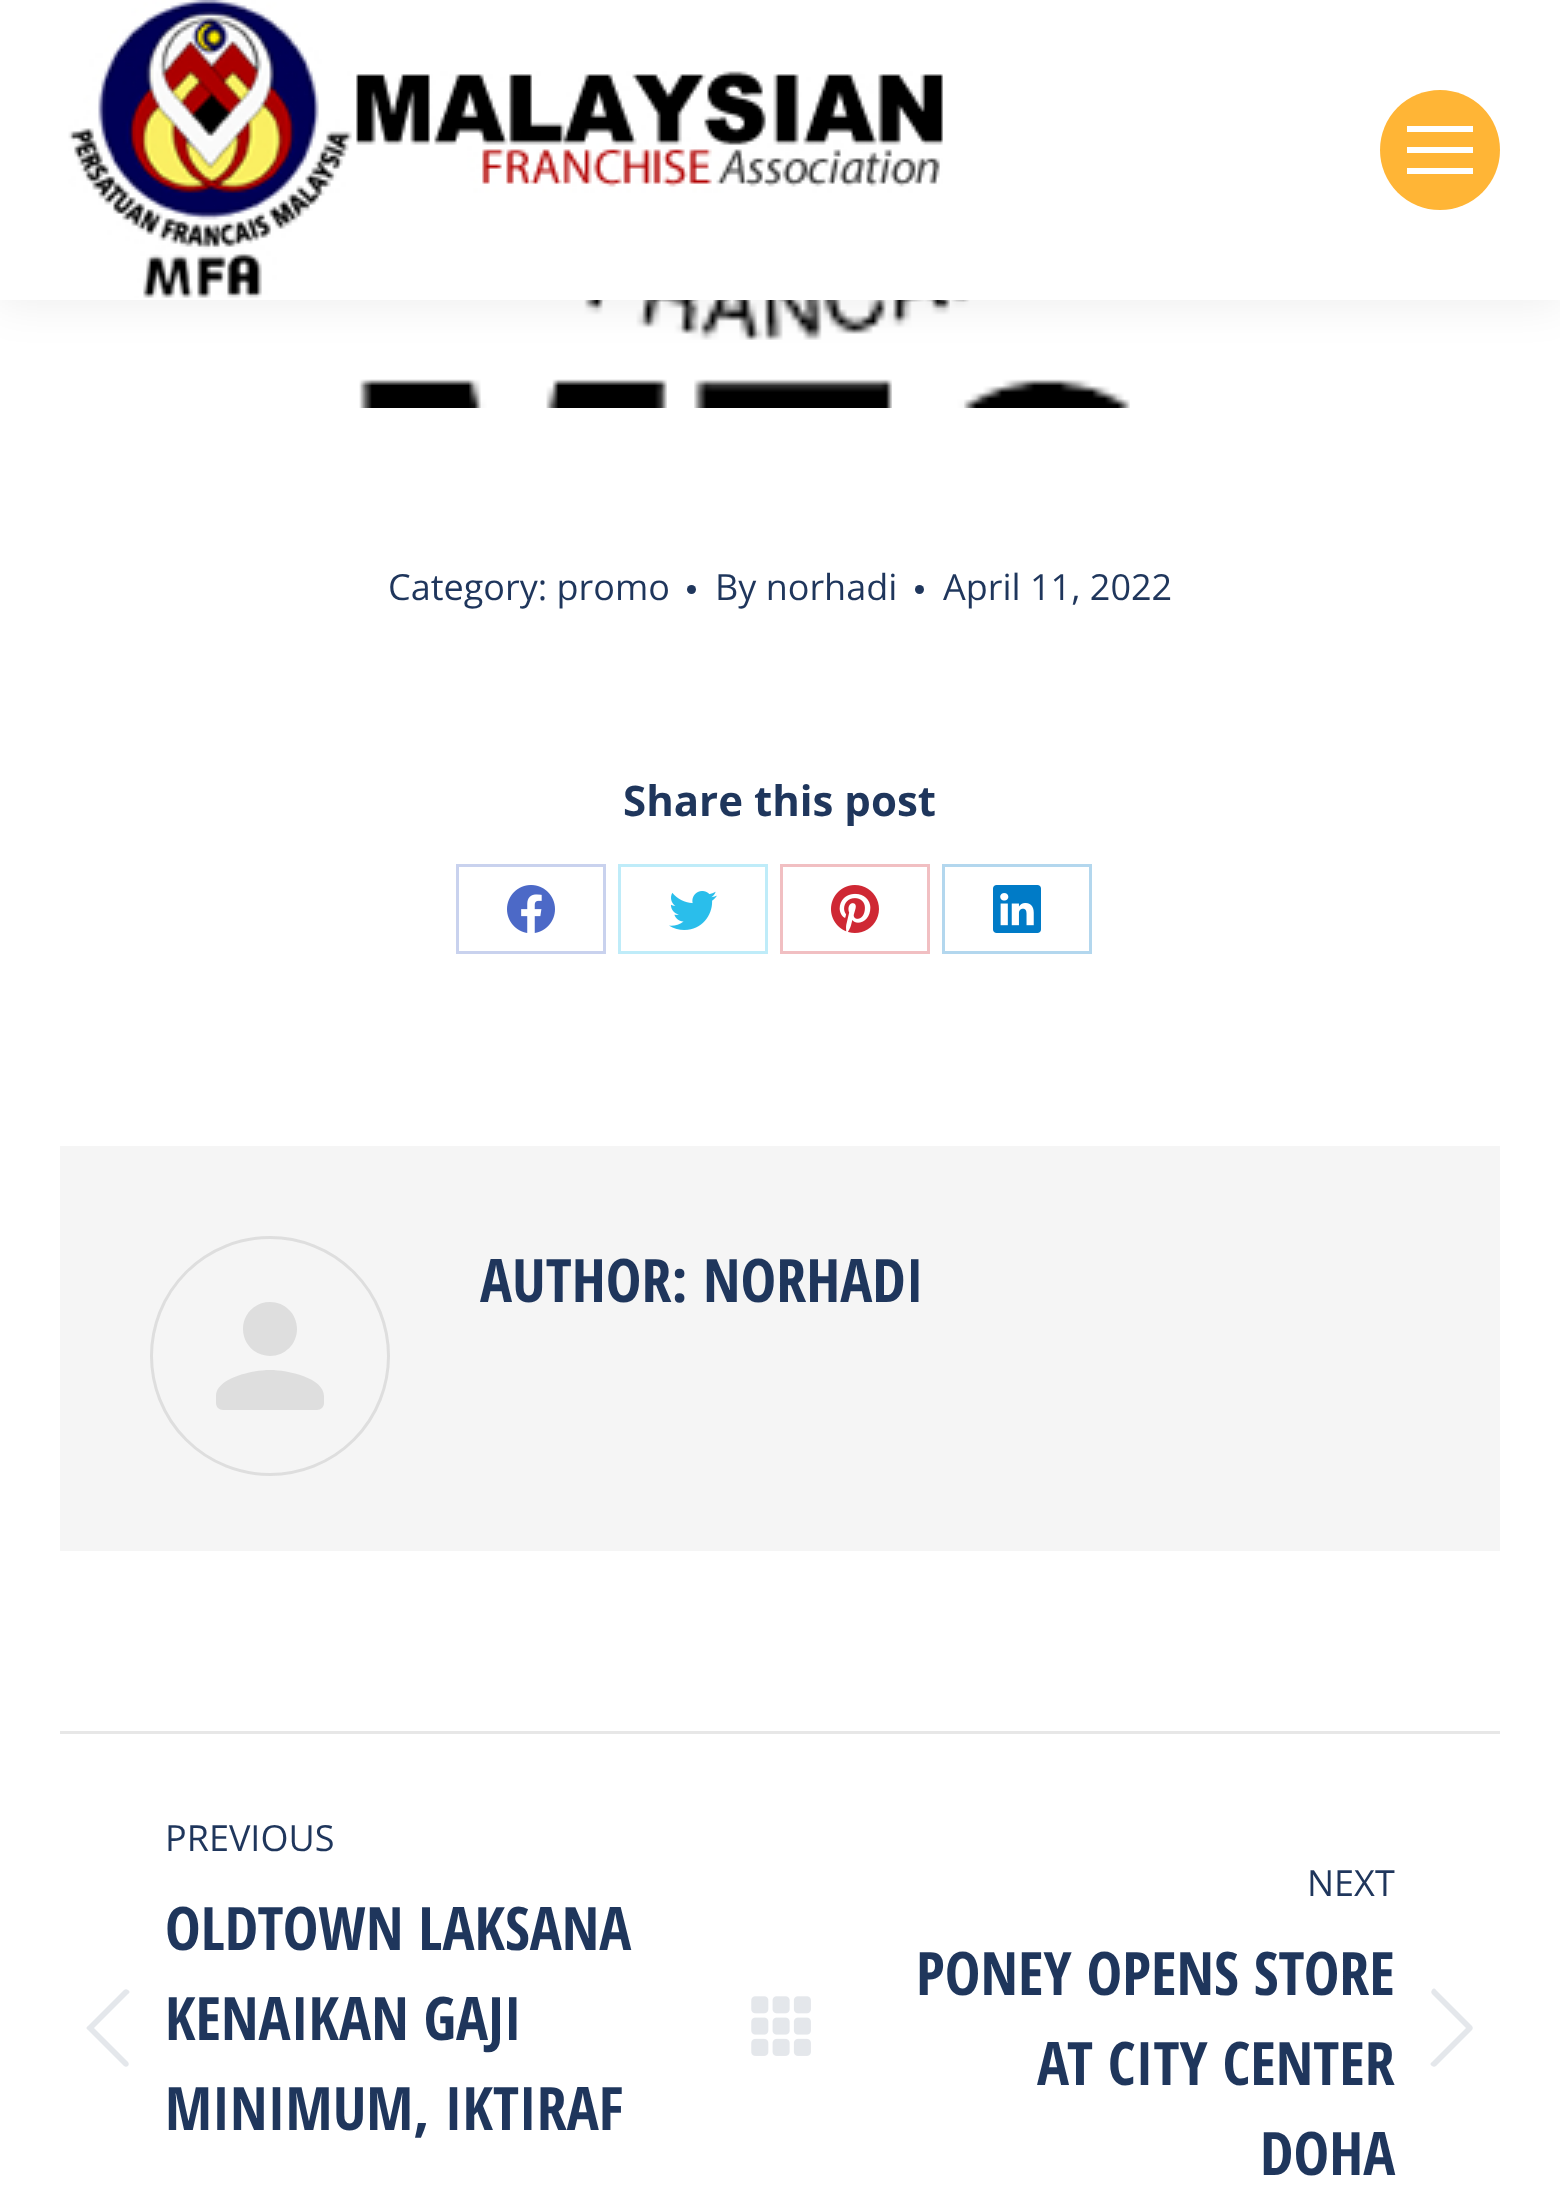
<svg xmlns="http://www.w3.org/2000/svg" width="1560" height="2185" viewBox="0 0 1560 2185">
  <defs>
    <filter id="blur1" x="-50%" y="-200%" width="200%" height="500%"><feGaussianBlur stdDeviation="22.5"/></filter>
  </defs>
  <rect width="100%" height="100%" fill="#ffffff"/>
  <image x="276" y="300" width="988" height="108" href="img2.png"/>
  <rect x="-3" y="-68" width="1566" height="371" fill="#000000" fill-opacity="0.07" filter="url(#blur1)"/>
  <rect x="0" y="0" width="1560" height="300" fill="#ffffff"/>
  <image x="68" y="0" width="875" height="298" href="img1.png"/>
  <circle cx="1440" cy="150" r="60" fill="#ffb536"/>
  <rect x="1407" y="126" width="66" height="6" fill="#ffffff"/>
  <rect x="1407" y="147" width="66" height="6" fill="#ffffff"/>
  <rect x="1407" y="168" width="66" height="6" fill="#ffffff"/>
  <text x="388" y="600" font-family="Open Sans" font-size="36" fill="#1f365c">Category: promo</text>
  <circle cx="691.5" cy="589.5" r="4.5" fill="#1f365c"/>
  <text x="715" y="600" font-family="Open Sans" font-size="36" fill="#1f365c">By norhadi</text>
  <circle cx="919.5" cy="589.5" r="4.5" fill="#1f365c"/>
  <text x="943" y="600" font-family="Open Sans" font-size="36" fill="#1f365c">April 11, 2022</text>
  <text x="623" y="816" font-family="Open Sans" font-size="42" font-weight="bold" fill="#1f365c">Share this post</text>
  <rect x="457.5" y="865.5" width="147" height="87" fill="none" stroke="#c9d2ee" stroke-width="3"/>
  <image x="507" y="885" width="48" height="48" href="img3.png"/>
  <rect x="619.5" y="865.5" width="147" height="87" fill="none" stroke="#bfecf9" stroke-width="3"/>
  <image x="669" y="891" width="48" height="39" href="img4.png"/>
  <rect x="781.5" y="865.5" width="147" height="87" fill="none" stroke="#f1bfc2" stroke-width="3"/>
  <image x="831" y="885" width="48" height="48" href="img5.png"/>
  <rect x="943.5" y="865.5" width="147" height="87" fill="none" stroke="#b3d7ee" stroke-width="3"/>
  <image x="993" y="885" width="48" height="48" href="img6.png"/>
  <rect x="60" y="1146" width="1440" height="405" fill="#f5f5f5"/>
  <circle cx="270" cy="1356" r="118.5" fill="none" stroke="#dedede" stroke-width="3"/>
  <path d="M270 1356C285 1356 297 1344 297 1329C297 1314 285 1302 270 1302C255 1302 243 1314 243 1329C243 1344 255 1356 270 1356ZM270 1370C252 1370 216 1378 216 1396V1403C216 1407 219 1410 223 1410H317C321 1410 324 1407 324 1403V1396C324 1378 288 1370 270 1370Z" fill="#dedede"/>
  <text x="480" y="1302" font-family="Open Sans Condensed" font-size="60" font-weight="bold" fill="#1f365c">AUTHOR:</text>
  <text x="703" y="1302" font-family="Open Sans Condensed" font-size="60" font-weight="bold" fill="#1f365c">NORHADI</text>
  <rect x="60" y="1731" width="1440" height="3" fill="#e7e7e7"/>
  <text x="165" y="1851" font-family="Open Sans" font-size="36" fill="#1f365c">PREVIOUS</text>
  <path d="M128 1990C130 1991 130 1993 128 1994L94 2028L128 2062C129 2063 129 2065 128 2066C127 2067 125 2067 124 2066L88 2030C86 2029 86 2027 88 2026L124 1990C125 1989 127 1989 128 1990Z" fill="#e4e7eb"/>
  <text x="165" y="1950" font-family="Open Sans Condensed" font-size="60" font-weight="bold" fill="#1f365c">OLDTOWN LAKSANA</text>
  <text x="165" y="2040" font-family="Open Sans Condensed" font-size="60" font-weight="bold" fill="#1f365c">KENAIKAN GAJI</text>
  <text x="165" y="2130" font-family="Open Sans Condensed" font-size="60" font-weight="bold" fill="#1f365c">MINIMUM, IKTIRAF</text>
  <image x="751" y="1996" width="60" height="60" href="img7.png"/>
  <text x="1307" y="1896" font-family="Open Sans" font-size="36" fill="#1f365c">NEXT</text>
  <text x="916" y="1995" font-family="Open Sans Condensed" font-size="60" font-weight="bold" fill="#1f365c">PONEY OPENS STORE</text>
  <text x="1037" y="2085" font-family="Open Sans Condensed" font-size="60" font-weight="bold" fill="#1f365c">AT CITY CENTER</text>
  <text x="1260" y="2175" font-family="Open Sans Condensed" font-size="60" font-weight="bold" fill="#1f365c">DOHA</text>
  <path d="M1432 1990C1433 1988 1435 1988 1436 1990L1472 2026C1473 2027 1473 2029 1472 2030L1436 2066C1435 2067 1433 2067 1432 2066C1430 2065 1430 2063 1432 2062L1466 2028L1432 1994C1431 1993 1431 1991 1432 1990Z" fill="#e4e7eb"/>
</svg>
